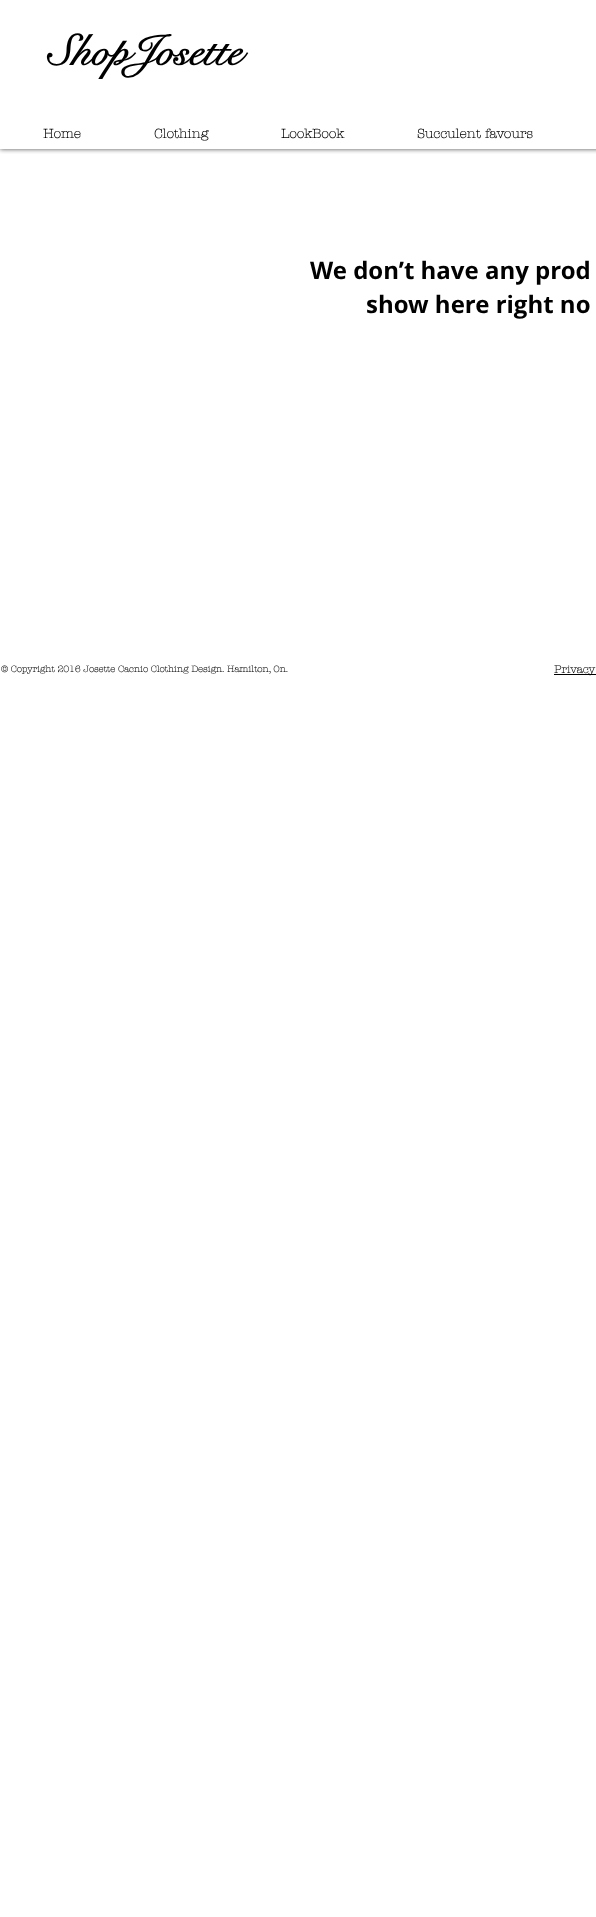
<svg xmlns="http://www.w3.org/2000/svg" width="596" height="1917" viewBox="0 0 596 1917">
  <defs>
    <clipPath id="clip1"><rect x="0" y="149" width="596" height="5"/></clipPath>
    <filter id="blur1" x="-50%" y="-200%" width="200%" height="500%"><feGaussianBlur stdDeviation="2.5"/></filter>
  </defs>
  <rect width="100%" height="100%" fill="#ffffff"/>
  <g clip-path="url(#clip1)">
    <rect x="0" y="0" width="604" height="149" fill="#000000" fill-opacity="0.7" filter="url(#blur1)"/>
  </g>
  <text x="48" y="65" font-family="'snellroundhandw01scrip'" font-size="43" font-weight="bold" fill="#000000">ShopJosette</text>
  <text x="43" y="138" font-family="'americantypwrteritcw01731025'" font-size="13" font-weight="bold" fill="#000000">Home</text>
  <text x="154" y="138" font-family="'americantypwrteritcw01731025'" font-size="13" font-weight="bold" fill="#000000">Clothing</text>
  <text x="281" y="138" font-family="'americantypwrteritcw01731025'" font-size="13" font-weight="bold" fill="#000000">LookBook</text>
  <text x="417" y="138" font-family="'americantypwrteritcw01731025'" font-size="13" font-weight="bold" fill="#000000">Succulent favours</text>
  <text x="310" y="279" font-family="Open Sans" font-size="24" font-weight="bold" fill="#000000">We don’t have any prod</text>
  <text x="366" y="313" font-family="Open Sans" font-size="24" font-weight="bold" fill="#000000">show here right no</text>
  <text x="1" y="672" font-family="'americantypwrteritcw01731025'" font-size="9" font-weight="bold" fill="#000000">© Copyright 2016 Josette Cacnio Clothing Design. Hamilton, On.</text>
  <rect x="554" y="674" width="42" height="1" fill="#000000"/>
  <text x="554" y="673" font-family="'americantypwrteritcw01731025'" font-size="11" font-weight="bold" fill="#000000">Privacy</text>
</svg>
